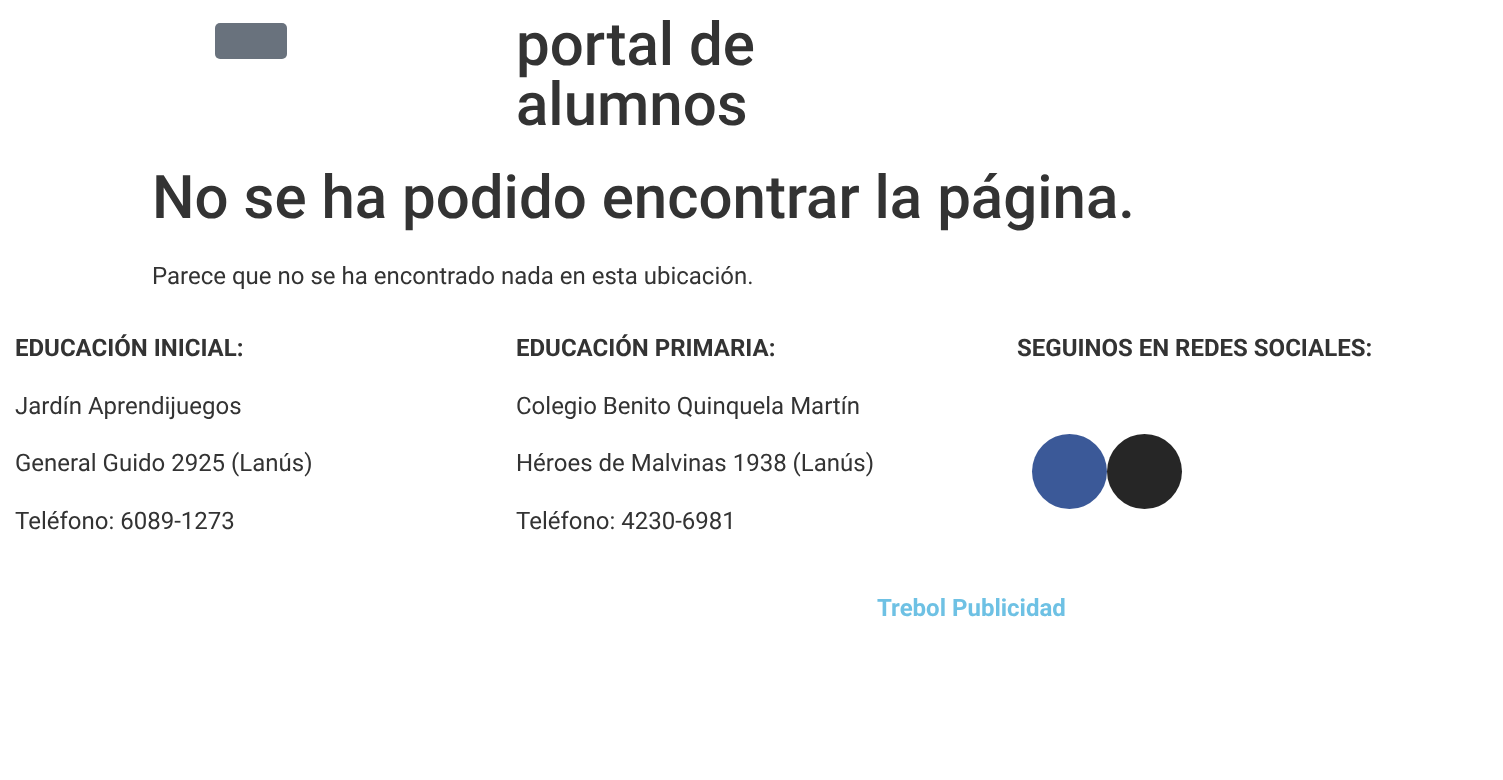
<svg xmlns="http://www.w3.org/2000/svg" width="1503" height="780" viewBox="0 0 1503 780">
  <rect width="100%" height="100%" fill="#ffffff"/>
  <rect x="215" y="23" width="72" height="36" rx="5" fill="#69727d"/>
  <text x="516" y="65" font-family="Roboto" font-size="60" font-weight="500" fill="#333333">portal de</text>
  <text x="516" y="125" font-family="Roboto" font-size="60" font-weight="500" fill="#333333">alumnos</text>
  <text x="152" y="218" font-family="Roboto" font-size="60" font-weight="500" fill="#333333">No se ha podido encontrar la página.</text>
  <text x="152" y="284" font-family="Roboto" font-size="24" fill="#333333">Parece que no se ha encontrado nada en esta ubicación.</text>
  <text x="15" y="356" font-family="Roboto" font-size="24" font-weight="bold" fill="#333333">EDUCACIÓN INICIAL:</text>
  <text x="15" y="414" font-family="Roboto" font-size="24" fill="#333333">Jardín Aprendijuegos</text>
  <text x="15" y="471" font-family="Roboto" font-size="24" fill="#333333">General Guido 2925 (Lanús)</text>
  <text x="15" y="529" font-family="Roboto" font-size="24" fill="#333333">Teléfono: 6089-1273</text>
  <text x="516" y="356" font-family="Roboto" font-size="24" font-weight="bold" fill="#333333">EDUCACIÓN PRIMARIA:</text>
  <text x="516" y="414" font-family="Roboto" font-size="24" fill="#333333">Colegio Benito Quinquela Martín</text>
  <text x="516" y="471" font-family="Roboto" font-size="24" fill="#333333">Héroes de Malvinas 1938 (Lanús)</text>
  <text x="516" y="529" font-family="Roboto" font-size="24" fill="#333333">Teléfono: 4230-6981</text>
  <text x="1017" y="356" font-family="Roboto" font-size="24" font-weight="bold" fill="#333333">SEGUINOS EN REDES SOCIALES:</text>
  <circle cx="1069.5" cy="471.5" r="37.5" fill="#3b5998"/>
  <circle cx="1144.5" cy="471.5" r="37.5" fill="#262626"/>
  <text x="877" y="616" font-family="Roboto" font-size="24" font-weight="bold" fill="#6ec1e4">Trebol Publicidad</text>
</svg>
